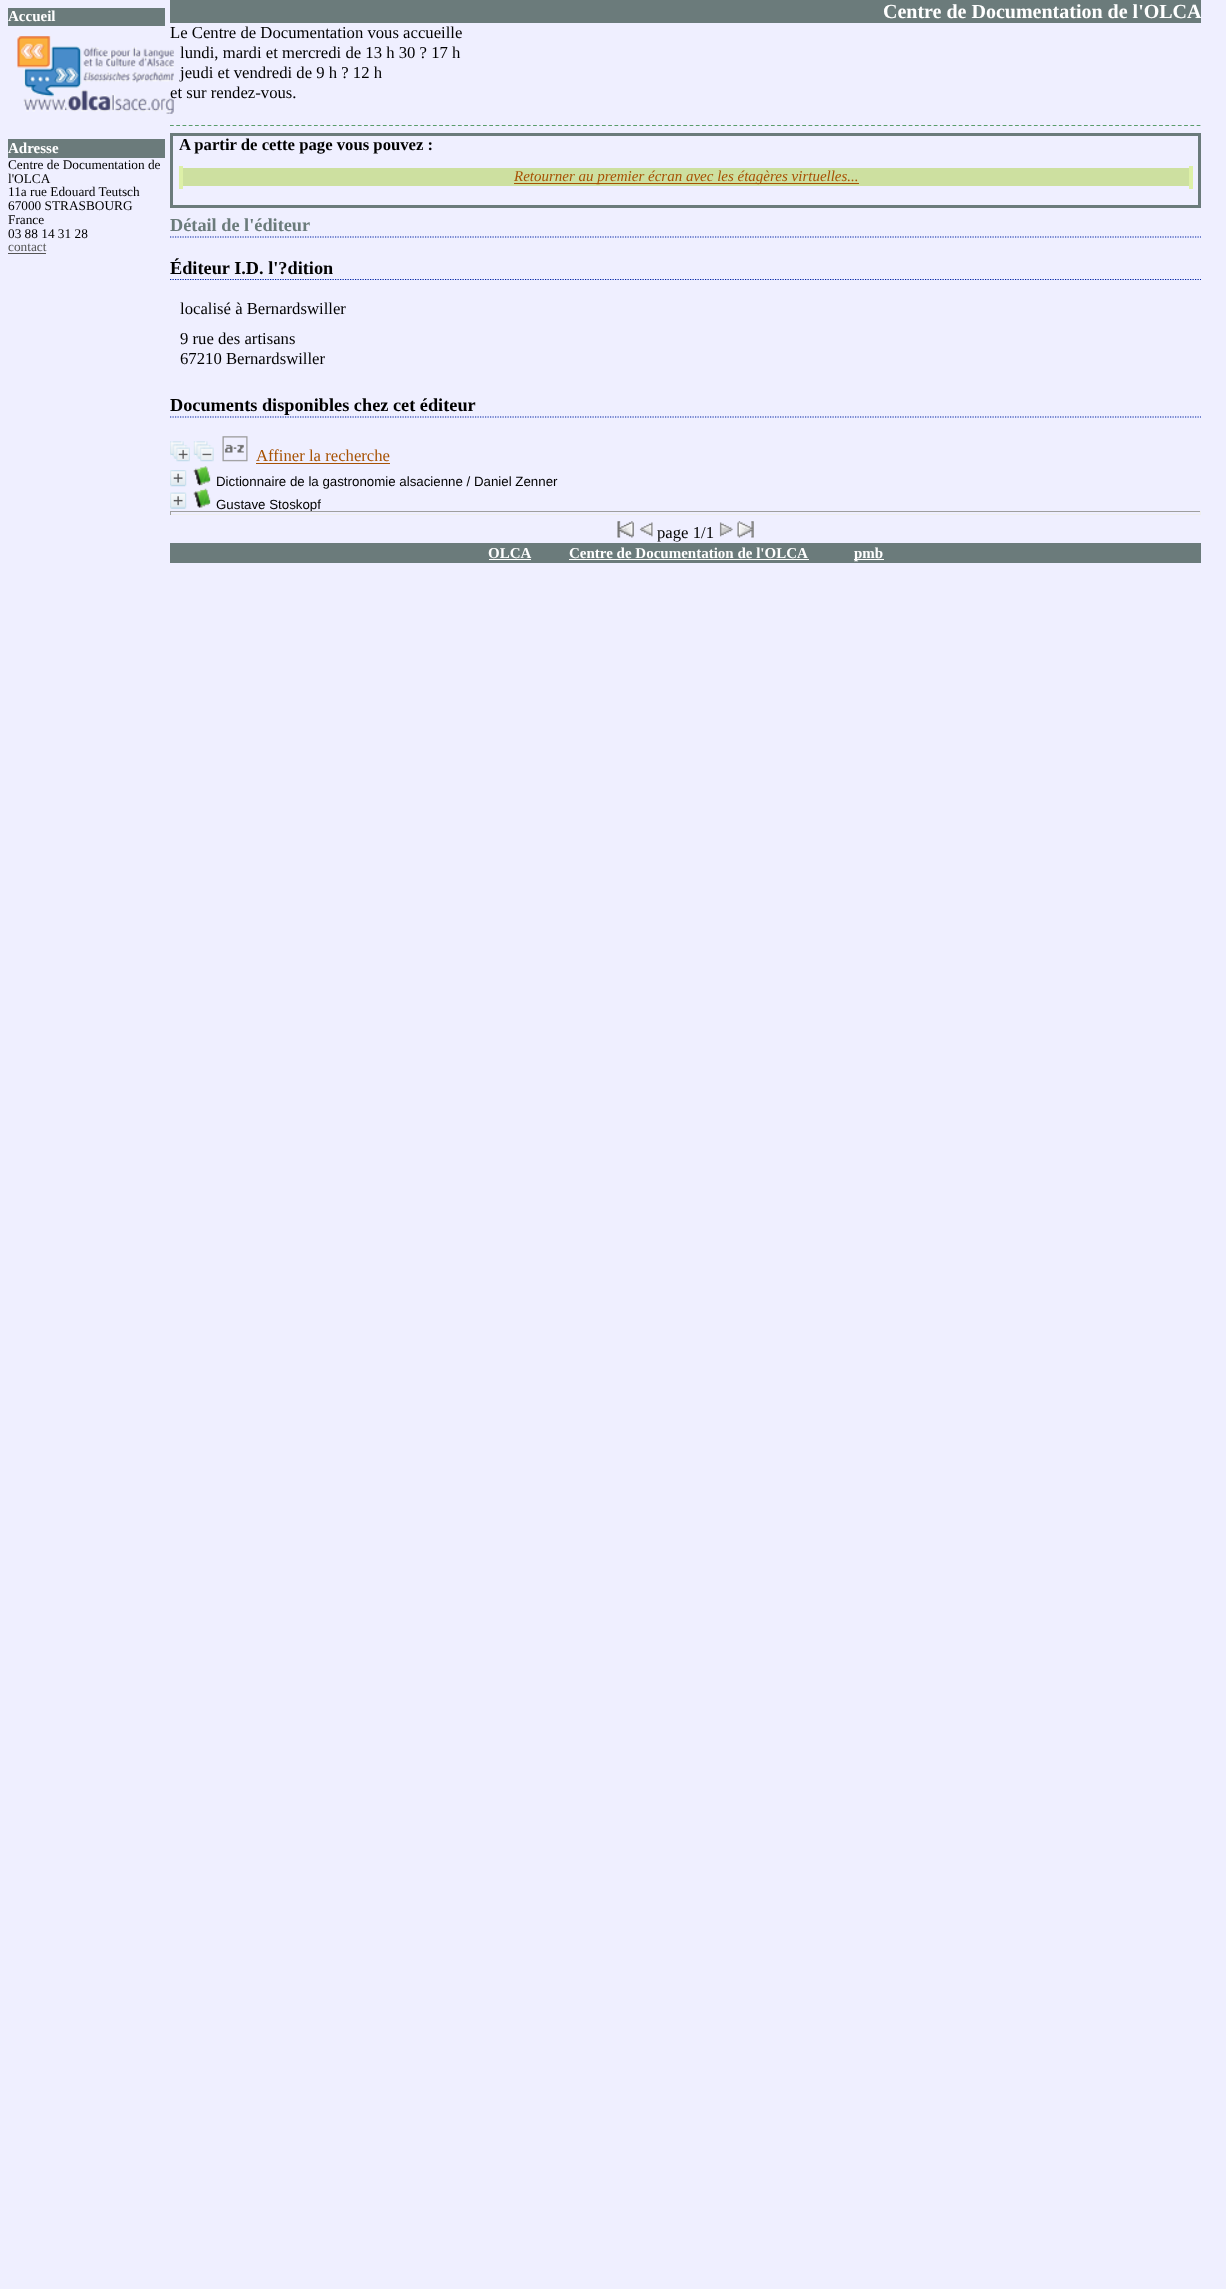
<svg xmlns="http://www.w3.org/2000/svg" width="1226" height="2289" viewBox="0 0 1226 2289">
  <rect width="100%" height="100%" fill="#efefff"/>
  <rect x="8" y="8" width="157" height="18" fill="#6b7b7b"/>
  <text x="8" y="21" font-family="Liberation Serif" font-size="15" font-weight="bold" fill="#ffffff">Accueil</text>
  <text x="170" y="38" font-family="Liberation Serif" font-size="16.7" fill="#000000">Le Centre de Documentation vous accueille</text>
  <text x="170" y="98" font-family="Liberation Serif" font-size="16.7" fill="#000000">et sur rendez-vous.</text>
  <image x="17" y="36" width="157" height="78" href="img1.png"/>
  <rect x="8" y="139" width="157" height="19" fill="#6b7b7b"/>
  <text x="8" y="153" font-family="Liberation Serif" font-size="15" font-weight="bold" fill="#ffffff">Adresse</text>
  <text x="8" y="169" font-family="Liberation Serif" font-size="13.3" fill="#000000">Centre de Documentation de</text>
  <text x="8" y="183" font-family="Liberation Serif" font-size="13.3" fill="#000000">l'OLCA</text>
  <text x="8" y="196" font-family="Liberation Serif" font-size="13.3" fill="#000000">11a rue Edouard Teutsch</text>
  <text x="8" y="210" font-family="Liberation Serif" font-size="13.3" fill="#000000">67000 STRASBOURG</text>
  <text x="8" y="224" font-family="Liberation Serif" font-size="13.3" fill="#000000">France</text>
  <text x="8" y="238" font-family="Liberation Serif" font-size="13.3" fill="#000000">03 88 14 31 28</text>
  <text x="8" y="251" font-family="Liberation Serif" font-size="13.3" fill="#555555">contact</text>
  <rect x="8" y="253" width="38" height="1" fill="#555555"/>
  <rect x="170" y="0" width="1031" height="23" fill="#6b7b7b"/>
  <text x="883" y="18" font-family="Liberation Serif" font-size="20" font-weight="bold" fill="#ffffff">Centre de Documentation de l'OLCA</text>
  <text x="180" y="58" font-family="Liberation Serif" font-size="16.7" fill="#000000">lundi, mardi et mercredi de 13 h 30 ? 17 h</text>
  <text x="180" y="78" font-family="Liberation Serif" font-size="16.7" fill="#000000">jeudi et vendredi de 9 h ? 12 h</text>
  <path d="M170 125.5H1201" fill="none" stroke="#5a9c6b" stroke-width="1.2" stroke-dasharray="3.75 2.51"/>
  <rect x="171.5" y="134.5" width="1028" height="72" fill="none" stroke="#6b7b7b" stroke-width="3"/>
  <text x="179" y="150" font-family="Liberation Serif" font-size="16.7" font-weight="bold" fill="#000000">A partir de cette page vous pouvez :</text>
  <rect x="183" y="168" width="1006" height="18" fill="#cde0a0"/>
  <rect x="1189" y="166" width="4" height="23" fill="#ddf0a7"/>
  <rect x="179" y="166" width="4" height="23" fill="#ddf0a7"/>
  <rect x="514" y="183" width="345" height="1" fill="#a75204"/>
  <text x="514" y="181" font-family="Liberation Serif" font-size="15" font-style="italic" fill="#a75204">Retourner au premier écran avec les étagères virtuelles...</text>
  <path d="M170 237H1201" fill="none" stroke="#0023a4" stroke-width="1.2" stroke-dasharray="1.25 1.25"/>
  <text x="170" y="231" font-family="Liberation Serif" font-size="18.3" font-weight="bold" fill="#6b7b7b">Détail de l'éditeur</text>
  <path d="M170 279.5H1201" fill="none" stroke="#0023a4" stroke-width="1.2" stroke-dasharray="1.25 1.25"/>
  <text x="170" y="274" font-family="Liberation Serif" font-size="18.3" font-weight="bold" fill="#000000">Éditeur I.D. l'?dition</text>
  <text x="180" y="314" font-family="Liberation Serif" font-size="16.7" fill="#000000">localisé à Bernardswiller</text>
  <text x="180" y="344" font-family="Liberation Serif" font-size="16.7" fill="#000000">9 rue des artisans</text>
  <text x="180" y="364" font-family="Liberation Serif" font-size="16.7" fill="#000000">67210 Bernardswiller</text>
  <path d="M170 417H1201" fill="none" stroke="#0023a4" stroke-width="1.2" stroke-dasharray="1.25 1.25"/>
  <text x="170" y="411" font-family="Liberation Serif" font-size="18.3" font-weight="bold" fill="#000000">Documents disponibles chez cet éditeur</text>
  <image x="170" y="441" width="20" height="21" href="img2.png"/>
  <image x="193" y="441" width="21" height="21" href="img3.png"/>
  <image x="222" y="436" width="26" height="26" href="img4.png"/>
  <text x="256" y="461" font-family="Liberation Serif" font-size="16.7" fill="#a75204">Affiner la recherche</text>
  <rect x="256" y="463" width="134" height="1" fill="#a75204"/>
  <image x="170" y="470" width="17" height="17" href="img5.png"/>
  <image x="193" y="466" width="18" height="20" href="img6.png"/>
  <text x="216" y="486" font-family="Liberation Sans" font-size="13.3" fill="#000000">Dictionnaire de la gastronomie alsacienne / Daniel Zenner</text>
  <image x="170" y="492" width="17" height="17" href="img7.png"/>
  <image x="193" y="488" width="18" height="20" href="img8.png"/>
  <text x="216" y="509" font-family="Liberation Sans" font-size="13.3" fill="#000000">Gustave Stoskopf</text>
  <rect x="170" y="511" width="1031" height="1" fill="#9f9f9f"/>
  <rect x="1200" y="511" width="1" height="4" fill="#eeeeee"/>
  <rect x="170" y="514" width="1031" height="1" fill="#eeeeee"/>
  <rect x="170" y="511" width="1" height="4" fill="#9f9f9f"/>
  <image x="617" y="521" width="17" height="17" href="img9.png"/>
  <image x="639" y="522" width="14" height="15" href="img10.png"/>
  <text x="657" y="538" font-family="Liberation Serif" font-size="16.7" fill="#000000">page 1/1</text>
  <image x="719" y="522" width="14" height="15" href="img11.png"/>
  <image x="737" y="521" width="17" height="17" href="img12.png"/>
  <rect x="170" y="543" width="1031" height="20" fill="#6b7b7b"/>
  <text x="488" y="558" font-family="Liberation Serif" font-size="15" font-weight="bold" fill="#ffffff">OLCA</text>
  <rect x="489" y="559" width="42" height="1" fill="#ffffff"/>
  <text x="569" y="558" font-family="Liberation Serif" font-size="15" font-weight="bold" fill="#ffffff">Centre de Documentation de l'OLCA</text>
  <rect x="569" y="559" width="240" height="1" fill="#ffffff"/>
  <rect x="854" y="559" width="30" height="1" fill="#ffffff"/>
  <text x="854" y="558" font-family="Liberation Serif" font-size="15" font-weight="bold" fill="#ffffff">pmb</text>
</svg>
